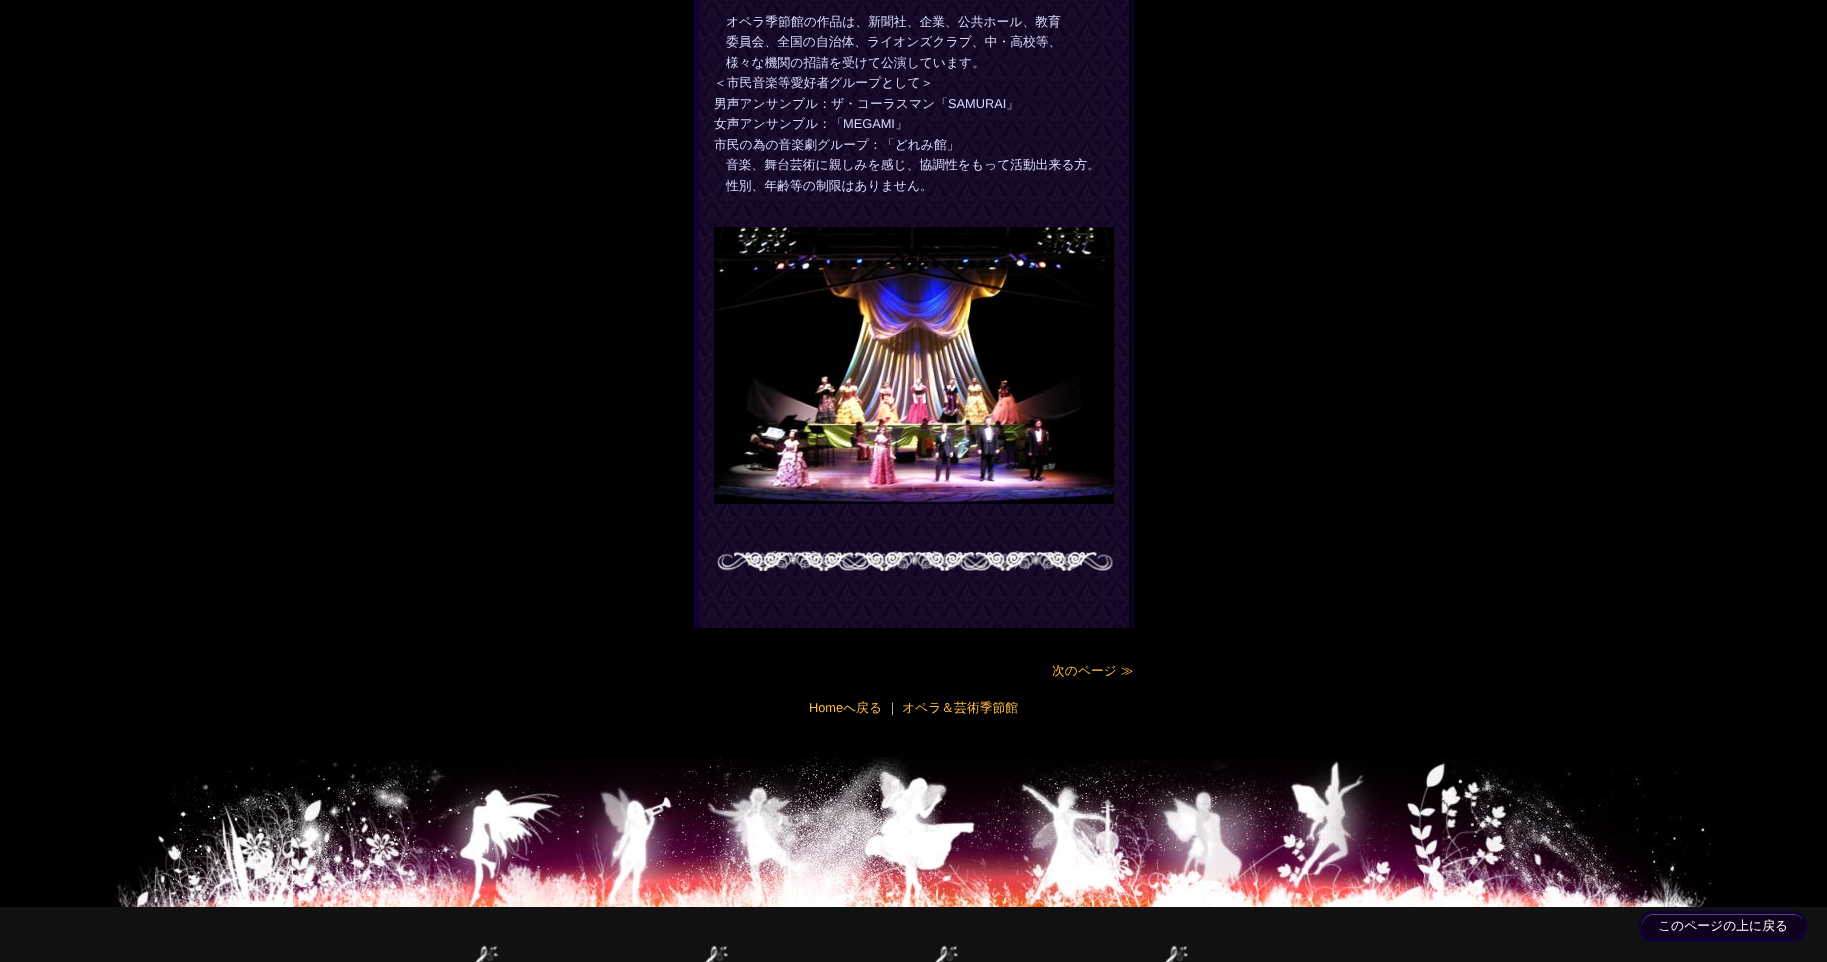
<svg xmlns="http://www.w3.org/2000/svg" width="1827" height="962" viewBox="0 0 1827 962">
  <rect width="100%" height="100%" fill="#000000"/>
  <image x="694" y="0" width="440" height="628" href="img1.png"/>
  <text x="726" y="26" font-family="WenQuanYi Zen Hei" font-size="12.8" font-weight="500" fill="#d7d9ff">オペラ季節館の作品は、新聞社、企業、公共ホール、教育</text>
  <text x="726" y="46" font-family="WenQuanYi Zen Hei" font-size="12.8" font-weight="500" fill="#d7d9ff">委員会、全国の自治体、ライオンズクラブ、中・高校等、</text>
  <text x="726" y="67" font-family="WenQuanYi Zen Hei" font-size="12.8" font-weight="500" fill="#d7d9ff">様々な機関の招請を受けて公演しています。</text>
  <text x="714" y="87" font-family="WenQuanYi Zen Hei" font-size="12.8" font-weight="500" fill="#d7d9ff">＜市民音楽等愛好者グループとして＞</text>
  <text x="714" y="108" font-family="WenQuanYi Zen Hei" font-size="12.8" font-weight="500" fill="#d7d9ff">男声アンサンブル：ザ・コーラスマン「</text>
  <text x="948" y="108" font-family="Liberation Sans" font-size="12.8" fill="#d7d9ff">SAMURAI</text>
  <text x="1006" y="108" font-family="WenQuanYi Zen Hei" font-size="12.8" font-weight="500" fill="#d7d9ff">」</text>
  <text x="714" y="128" font-family="WenQuanYi Zen Hei" font-size="12.8" font-weight="500" fill="#d7d9ff">女声アンサンブル：「</text>
  <text x="843" y="128" font-family="Liberation Sans" font-size="12.8" fill="#d7d9ff">MEGAMI</text>
  <text x="895" y="128" font-family="WenQuanYi Zen Hei" font-size="12.8" font-weight="500" fill="#d7d9ff">」</text>
  <text x="714" y="149" font-family="WenQuanYi Zen Hei" font-size="12.8" font-weight="500" fill="#d7d9ff">市民の為の音楽劇グループ：「どれみ館」</text>
  <text x="726" y="169" font-family="WenQuanYi Zen Hei" font-size="12.8" font-weight="500" fill="#d7d9ff">音楽、舞台芸術に親しみを感じ、協調性をもって活動出来る方。</text>
  <text x="726" y="190" font-family="WenQuanYi Zen Hei" font-size="12.8" font-weight="500" fill="#d7d9ff">性別、年齢等の制限はありません。</text>
  <image x="714" y="227" width="400" height="277" href="img2.png"/>
  <image x="717" y="551" width="396" height="20" href="img3.png"/>
  <text x="1052" y="675" font-family="WenQuanYi Zen Hei" font-size="12.8" font-weight="500" fill="#ffbd42">次のページ ≫</text>
  <text x="809" y="712" font-family="Liberation Sans" font-size="12.8" fill="#ffbd42">Home</text>
  <text x="843" y="712" font-family="WenQuanYi Zen Hei" font-size="12.8" font-weight="500" fill="#ffbd42">へ戻る</text>
  <text x="886" y="712" font-family="WenQuanYi Zen Hei" font-size="12.8" font-weight="500" fill="#d7d9ff">｜</text>
  <text x="902" y="712" font-family="WenQuanYi Zen Hei" font-size="12.8" font-weight="500" fill="#ffbd42">オペラ＆芸術季節館</text>
  <image x="114" y="757" width="1600" height="150" href="img4.png"/>
  <rect x="0" y="907" width="1827" height="55" fill="#111111"/>
  <image x="474" y="945" width="24" height="17" href="img5.png"/>
  <image x="704" y="945" width="24" height="17" href="img6.png"/>
  <image x="934" y="945" width="24" height="17" href="img6.png"/>
  <image x="1164" y="945" width="24" height="17" href="img5.png"/>
  <rect x="1642" y="914" width="162" height="25" rx="11" fill="#10011e"/>
  <path d="M1653 915H1795C1801 916 1804 921 1804 926C1804 908 1780 914 1770 914H1676C1668 914 1642 908 1642 926C1643 920 1646 915 1653 915Z" fill="#ffffff" fill-opacity="0.4"/>
  <rect x="1642.5" y="914.5" width="161" height="24" rx="10.5" fill="none" stroke="#000000" stroke-opacity="0.2"/>
  <rect x="1640.5" y="912.5" width="165" height="28" rx="12.5" fill="none" stroke="#0f0039" stroke-width="3"/>
  <text x="1658" y="930" font-family="WenQuanYi Zen Hei" font-size="12.8" font-weight="500" fill="#ffffff">このページの上に戻る</text>
</svg>
